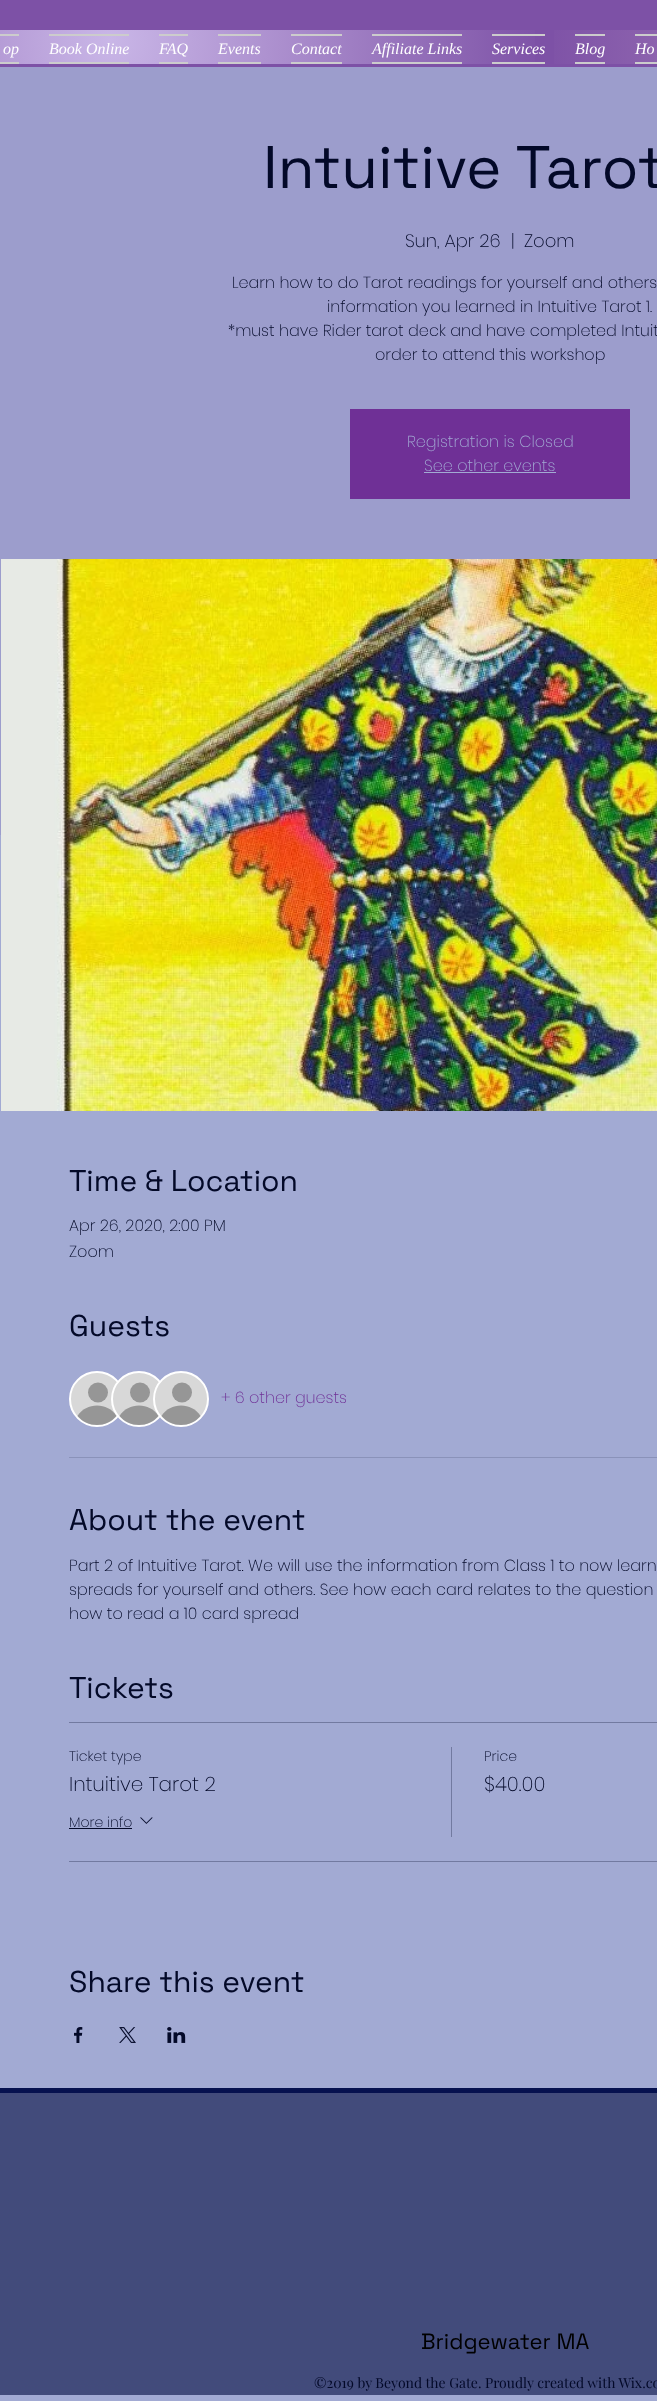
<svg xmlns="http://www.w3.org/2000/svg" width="657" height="2401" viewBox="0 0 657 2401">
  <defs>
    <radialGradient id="g1" gradientUnits="userSpaceOnUse" cx="110" cy="40" r="871"><stop offset="0" stop-color="#c9b6e7"/><stop offset="0.5" stop-color="#7d51a6"/></radialGradient>
    <radialGradient id="g2" gradientUnits="userSpaceOnUse" cx="827" cy="55" r="827"><stop offset="0" stop-color="#a17ab9"/><stop offset="0.35" stop-color="#a17ab9" stop-opacity="0"/></radialGradient>
  </defs>
  <rect width="100%" height="100%" fill="#a2aad3"/>
  <rect x="0" y="0" width="657" height="67" fill="#7d51a6"/>
  <rect x="0" y="30" width="535" height="34" fill="url(#g1)"/>
  <rect x="554" y="30" width="103" height="34" fill="url(#g2)"/>
  <rect x="0" y="34" width="19" height="2" fill="#cccccc"/>
  <rect x="0" y="62" width="19" height="2" fill="#cccccc"/>
  <text x="3" y="54" font-family="Liberation Serif" font-size="16" font-style="italic" fill="#ffffff">op</text>
  <rect x="49" y="34" width="80" height="2" fill="#cccccc"/>
  <rect x="49" y="62" width="80" height="2" fill="#cccccc"/>
  <text x="49" y="54" font-family="Liberation Serif" font-size="16" font-style="italic" fill="#ffffff">Book Online</text>
  <rect x="159" y="34" width="29" height="2" fill="#cccccc"/>
  <rect x="159" y="62" width="29" height="2" fill="#cccccc"/>
  <text x="159" y="54" font-family="Liberation Serif" font-size="16" font-style="italic" fill="#ffffff">FAQ</text>
  <rect x="218" y="34" width="43" height="2" fill="#cccccc"/>
  <rect x="218" y="62" width="43" height="2" fill="#cccccc"/>
  <text x="218" y="54" font-family="Liberation Serif" font-size="16" font-style="italic" fill="#ffffff">Events</text>
  <rect x="291" y="34" width="51" height="2" fill="#cccccc"/>
  <rect x="291" y="62" width="51" height="2" fill="#cccccc"/>
  <text x="291" y="54" font-family="Liberation Serif" font-size="16" font-style="italic" fill="#ffffff">Contact</text>
  <rect x="372" y="34" width="90" height="2" fill="#cccccc"/>
  <rect x="372" y="62" width="90" height="2" fill="#cccccc"/>
  <text x="372" y="54" font-family="Liberation Serif" font-size="16" font-style="italic" fill="#ffffff">Affiliate Links</text>
  <rect x="492" y="34" width="53" height="2" fill="#cccccc"/>
  <rect x="492" y="62" width="53" height="2" fill="#cccccc"/>
  <text x="492" y="54" font-family="Liberation Serif" font-size="16" font-style="italic" fill="#ffffff">Services</text>
  <rect x="575" y="34" width="30" height="2" fill="#cccccc"/>
  <rect x="575" y="62" width="30" height="2" fill="#cccccc"/>
  <text x="575" y="54" font-family="Liberation Serif" font-size="16" font-style="italic" fill="#ffffff">Blog</text>
  <rect x="635" y="34" width="22" height="2" fill="#cccccc"/>
  <rect x="635" y="62" width="22" height="2" fill="#cccccc"/>
  <text x="635" y="54" font-family="Liberation Serif" font-size="16" font-style="italic" fill="#ffffff">Ho</text>
  <rect x="0" y="67" width="657" height="768" fill="#9c9dcc"/>
  <text x="263" y="188" font-family="Space Grotesk" font-size="60" fill="#030928">Intuitive Tarot</text>
  <text x="405" y="247" font-family="Poppins" font-size="18" font-weight="200" fill="#030928">Sun, Apr 26</text>
  <text x="511" y="247" font-family="Poppins" font-size="18" font-weight="200" fill="#030928">|</text>
  <text x="524" y="247" font-family="Poppins" font-size="18" font-weight="200" fill="#030928">Zoom</text>
  <text x="232" y="288" font-family="Poppins" font-size="16" font-weight="200" fill="#030928">Learn how to do Tarot readings for yourself and others</text>
  <text x="327" y="312" font-family="Poppins" font-size="16" font-weight="200" fill="#030928">information you learned in Intuitive Tarot 1.</text>
  <text x="228" y="336" font-family="Poppins" font-size="16" font-weight="200" fill="#030928">*must have Rider tarot deck and have completed Intuit</text>
  <text x="375" y="360" font-family="Poppins" font-size="16" font-weight="200" fill="#030928">order to attend this workshop</text>
  <rect x="350" y="409" width="280" height="90" fill="#6f3096"/>
  <text x="407" y="447" font-family="Poppins" font-size="16" font-weight="200" fill="#a2aad3">Registration is Closed</text>
  <text x="424" y="471" font-family="Poppins" font-size="16" font-weight="200" fill="#a2aad3">See other events</text>
  <rect x="424" y="472" width="132" height="1" fill="#a2aad3"/>
  <image x="1" y="559" width="656" height="552" href="img1.png"/>
  <text x="69" y="1191" font-family="Space Grotesk" font-size="30" fill="#030928">Time &amp; Location</text>
  <text x="69" y="1231" font-family="Poppins" font-size="16" font-weight="200" fill="#030928">Apr 26, 2020, 2:00 PM</text>
  <text x="69" y="1257" font-family="Poppins" font-size="16" font-weight="200" fill="#030928">Zoom</text>
  <text x="69" y="1336" font-family="Space Grotesk" font-size="30" fill="#030928">Guests</text>
  <circle cx="97" cy="1399" r="27" fill="#d8d8d8" stroke="#ffffff" stroke-width="2"/>
  <circle cx="98" cy="1392.5" r="10" fill="#969696"/>
  <path d="M116.5 1416C106.5 1428 87.5 1428 77.5 1416C86 1402 108 1402 116.5 1416Z" fill="#969696"/>
  <circle cx="139" cy="1399" r="27" fill="#d8d8d8" stroke="#ffffff" stroke-width="2"/>
  <circle cx="140" cy="1392.5" r="10" fill="#969696"/>
  <path d="M158.5 1416C148.5 1428 129.5 1428 119.5 1416C128 1402 150 1402 158.5 1416Z" fill="#969696"/>
  <circle cx="181" cy="1399" r="27" fill="#d8d8d8" stroke="#ffffff" stroke-width="2"/>
  <circle cx="182" cy="1392.5" r="10" fill="#969696"/>
  <path d="M200.5 1416C190.5 1428 171.5 1428 161.5 1416C170 1402 192 1402 200.5 1416Z" fill="#969696"/>
  <text x="221" y="1403" font-family="Poppins" font-size="16" font-weight="200" fill="#6f3096">+ 6 other guests</text>
  <rect x="69" y="1457" width="588" height="1" fill="#8a92b9"/>
  <text x="69" y="1530" font-family="Space Grotesk" font-size="30" fill="#030928">About the event</text>
  <text x="69" y="1571" font-family="Poppins" font-size="16" font-weight="200" fill="#030928">Part 2 of Intuitive Tarot. We will use the information from Class 1 to now learn</text>
  <text x="69" y="1595" font-family="Poppins" font-size="16" font-weight="200" fill="#030928">spreads for yourself and others. See how each card relates to the question</text>
  <text x="69" y="1619" font-family="Poppins" font-size="16" font-weight="200" fill="#030928">how to read a 10 card spread</text>
  <text x="69" y="1698" font-family="Space Grotesk" font-size="30" fill="#030928">Tickets</text>
  <rect x="69" y="1722" width="588" height="1" fill="#727aa0"/>
  <rect x="69" y="1861" width="588" height="1" fill="#727aa0"/>
  <text x="69" y="1761" font-family="Poppins" font-size="14" font-weight="200" fill="#030928">Ticket type</text>
  <text x="69" y="1791" font-family="Poppins" font-size="20" font-weight="200" fill="#030928">Intuitive Tarot 2</text>
  <text x="69" y="1827" font-family="Poppins" font-size="14" font-weight="200" fill="#030928">More info</text>
  <rect x="69" y="1828" width="63" height="1" fill="#030928"/>
  <image x="140" y="1817" width="13" height="7" href="img2.png"/>
  <rect x="451" y="1747" width="1" height="90" fill="#727aa0"/>
  <text x="484" y="1761" font-family="Poppins" font-size="14" font-weight="200" fill="#030928">Price</text>
  <text x="484" y="1791" font-family="Poppins" font-size="20" font-weight="200" fill="#030928">$40.00</text>
  <text x="69" y="1992" font-family="Space Grotesk" font-size="30" fill="#030928">Share this event</text>
  <image x="74" y="2027" width="9" height="16" href="img3.png"/>
  <image x="119" y="2027" width="17" height="16" href="img4.png"/>
  <image x="167" y="2027" width="19" height="16" href="img5.png"/>
  <rect x="0" y="2093" width="657" height="302" fill="#424b7b"/>
  <rect x="0" y="2088" width="657" height="5" fill="#06114f"/>
  <text x="421" y="2349" font-family="Space Grotesk" font-size="22" fill="#000000">Bridgewater MA</text>
  <text x="314" y="2388" font-family="Playfair Display" font-size="14" fill="#030928">©2019 by Beyond the Gate. Proudly created with Wix.co</text>
</svg>
